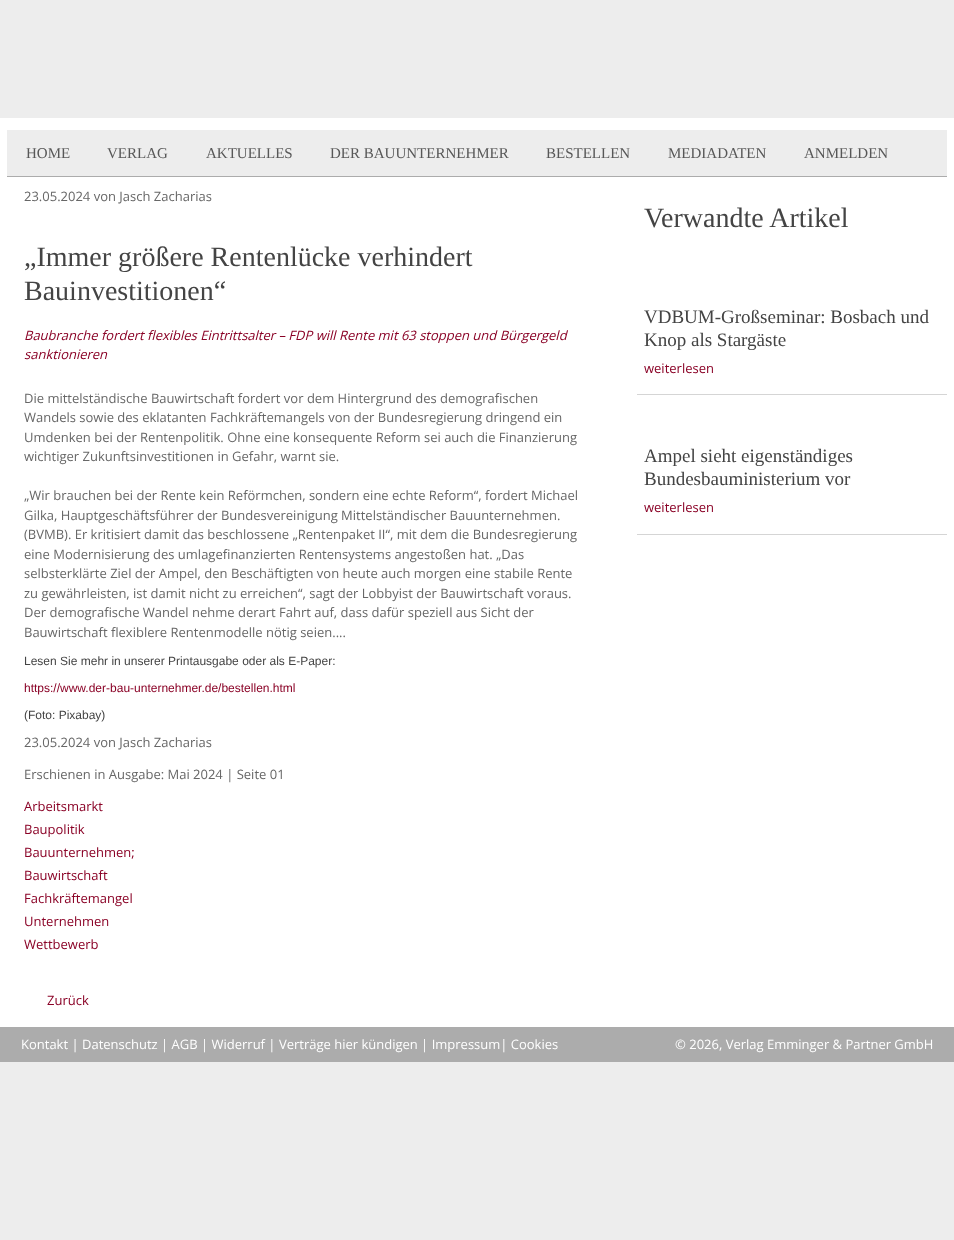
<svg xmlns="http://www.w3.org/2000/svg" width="954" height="1240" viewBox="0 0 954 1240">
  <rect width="100%" height="100%" fill="#ededed"/>
  <rect x="0" y="118" width="954" height="909" fill="#ffffff"/>
  <rect x="7" y="130" width="940" height="46" fill="#ededed"/>
  <rect x="7" y="176" width="940" height="1" fill="#acacac"/>
  <text x="26" y="158" font-family="Liberation Serif" font-size="15" fill="#575757">HOME</text>
  <text x="107" y="158" font-family="Liberation Serif" font-size="15" fill="#575757">VERLAG</text>
  <text x="206" y="158" font-family="Liberation Serif" font-size="15" fill="#575757">AKTUELLES</text>
  <text x="330" y="158" font-family="Liberation Serif" font-size="15" fill="#575757">DER BAUUNTERNEHMER</text>
  <text x="546" y="158" font-family="Liberation Serif" font-size="15" fill="#575757">BESTELLEN</text>
  <text x="668" y="158" font-family="Liberation Serif" font-size="15" fill="#575757">MEDIADATEN</text>
  <text x="804" y="158" font-family="Liberation Serif" font-size="15" fill="#575757">ANMELDEN</text>
  <text x="24" y="201" font-family="Open Sans" font-size="13" fill="#676767">23.05.2024 von Jasch Zacharias</text>
  <text x="24" y="266" font-family="Liberation Serif" font-size="28" fill="#444444">„Immer größere Rentenlücke verhindert</text>
  <text x="24" y="300" font-family="Liberation Serif" font-size="28" fill="#444444">Bauinvestitionen“</text>
  <text x="24" y="340" font-family="Open Sans" font-size="13" font-style="italic" fill="#8a0226">Baubranche fordert flexibles Eintrittsalter – FDP will Rente mit 63 stoppen und Bürgergeld</text>
  <text x="24" y="359" font-family="Open Sans" font-size="13" font-style="italic" fill="#8a0226">sanktionieren</text>
  <text x="24" y="403" font-family="Open Sans" font-size="13" fill="#676767">Die mittelständische Bauwirtschaft fordert vor dem Hintergrund des demografischen</text>
  <text x="24" y="422" font-family="Open Sans" font-size="13" fill="#676767">Wandels sowie des eklatanten Fachkräftemangels von der Bundesregierung dringend ein</text>
  <text x="24" y="442" font-family="Open Sans" font-size="13" fill="#676767">Umdenken bei der Rentenpolitik. Ohne eine konsequente Reform sei auch die Finanzierung</text>
  <text x="24" y="461" font-family="Open Sans" font-size="13" fill="#676767">wichtiger Zukunftsinvestitionen in Gefahr, warnt sie.</text>
  <text x="24" y="500" font-family="Open Sans" font-size="13" fill="#676767">„Wir brauchen bei der Rente kein Reförmchen, sondern eine echte Reform“, fordert Michael</text>
  <text x="24" y="520" font-family="Open Sans" font-size="13" fill="#676767">Gilka, Hauptgeschäftsführer der Bundesvereinigung Mittelständischer Bauunternehmen.</text>
  <text x="24" y="539" font-family="Open Sans" font-size="13" fill="#676767">(BVMB). Er kritisiert damit das beschlossene „Rentenpaket II“, mit dem die Bundesregierung</text>
  <text x="24" y="559" font-family="Open Sans" font-size="13" fill="#676767">eine Modernisierung des umlagefinanzierten Rentensystems angestoßen hat. „Das</text>
  <text x="24" y="578" font-family="Open Sans" font-size="13" fill="#676767">selbsterklärte Ziel der Ampel, den Beschäftigten von heute auch morgen eine stabile Rente</text>
  <text x="24" y="598" font-family="Open Sans" font-size="13" fill="#676767">zu gewährleisten, ist damit nicht zu erreichen“, sagt der Lobbyist der Bauwirtschaft voraus.</text>
  <text x="24" y="617" font-family="Open Sans" font-size="13" fill="#676767">Der demografische Wandel nehme derart Fahrt auf, dass dafür speziell aus Sicht der</text>
  <text x="24" y="637" font-family="Open Sans" font-size="13" fill="#676767">Bauwirtschaft flexiblere Rentenmodelle nötig seien....</text>
  <text x="24" y="665" font-family="Liberation Sans" font-size="12" fill="#444444">Lesen Sie mehr in unserer Printausgabe oder als E-Paper:</text>
  <text x="24" y="692" font-family="Liberation Sans" font-size="12" fill="#8a0226">https://www.der-bau-unternehmer.de/bestellen.html</text>
  <text x="24" y="719" font-family="Liberation Sans" font-size="12" fill="#444444">(Foto: Pixabay)</text>
  <text x="24" y="747" font-family="Open Sans" font-size="13" fill="#676767">23.05.2024 von Jasch Zacharias</text>
  <text x="24" y="779" font-family="Open Sans" font-size="13" fill="#676767">Erschienen in Ausgabe: Mai 2024 | Seite 01</text>
  <text x="24" y="811" font-family="Open Sans" font-size="13" fill="#8a0226">Arbeitsmarkt</text>
  <text x="24" y="834" font-family="Open Sans" font-size="13" fill="#8a0226">Baupolitik</text>
  <text x="24" y="857" font-family="Open Sans" font-size="13" fill="#8a0226">Bauunternehmen;</text>
  <text x="24" y="880" font-family="Open Sans" font-size="13" fill="#8a0226">Bauwirtschaft</text>
  <text x="24" y="903" font-family="Open Sans" font-size="13" fill="#8a0226">Fachkräftemangel</text>
  <text x="24" y="926" font-family="Open Sans" font-size="13" fill="#8a0226">Unternehmen</text>
  <text x="24" y="949" font-family="Open Sans" font-size="13" fill="#8a0226">Wettbewerb</text>
  <text x="47" y="1005" font-family="Open Sans" font-size="13" fill="#8a0226">Zurück</text>
  <text x="644" y="227" font-family="Liberation Serif" font-size="28" fill="#444444">Verwandte Artikel</text>
  <rect x="637" y="394" width="310" height="1" fill="#d5d5d5"/>
  <text x="644" y="323" font-family="Liberation Serif" font-size="19" fill="#444444">VDBUM-Großseminar: Bosbach und</text>
  <text x="644" y="346" font-family="Liberation Serif" font-size="19" fill="#444444">Knop als Stargäste</text>
  <text x="644" y="373" font-family="Open Sans" font-size="13" fill="#8a0226">weiterlesen</text>
  <rect x="637" y="534" width="310" height="1" fill="#d5d5d5"/>
  <text x="644" y="462" font-family="Liberation Serif" font-size="19" fill="#444444">Ampel sieht eigenständiges</text>
  <text x="644" y="485" font-family="Liberation Serif" font-size="19" fill="#444444">Bundesbauministerium vor</text>
  <text x="644" y="512" font-family="Open Sans" font-size="13" fill="#8a0226">weiterlesen</text>
  <rect x="0" y="1027" width="954" height="35" fill="#acacac"/>
  <text x="21" y="1049" font-family="Open Sans" font-size="13" fill="#ffffff">Kontakt | Datenschutz | AGB | Widerruf | Verträge hier kündigen | Impressum| Cookies</text>
  <text x="675" y="1049" font-family="Open Sans" font-size="13" fill="#ffffff">© 2026, Verlag Emminger &amp; Partner GmbH</text>
</svg>
